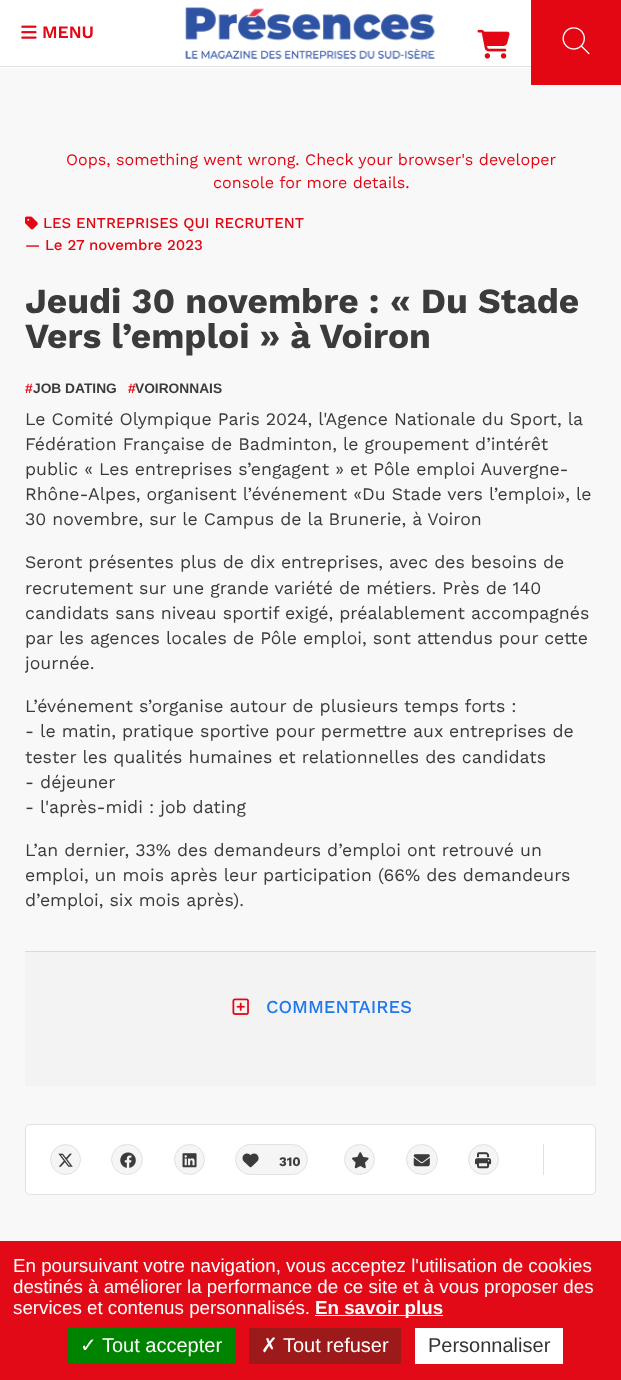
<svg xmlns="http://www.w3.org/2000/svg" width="621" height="1380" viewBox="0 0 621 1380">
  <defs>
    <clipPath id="clip1"><rect x="25" y="550" width="571" height="126"/></clipPath>
  </defs>
  <rect width="100%" height="100%" fill="#f8f8f8"/>
  <rect x="0" y="0" width="531" height="68" fill="#ffffff"/>
  <rect x="0" y="66" width="531" height="1" fill="#e1e1e1"/>
  <image x="21" y="25" width="16" height="14" href="img1.png"/>
  <text x="42" y="38" font-family="Work Sans" font-size="17.5" font-weight="600" fill="#e30613">MENU</text>
  <image x="185" y="7" width="251" height="52" href="img2.png"/>
  <rect x="531" y="0" width="90" height="85" fill="#e30613"/>
  <image x="562" y="27" width="28" height="28" href="img3.png"/>
  <image x="477" y="29" width="33" height="30" href="img4.png"/>
  <text x="66" y="165" font-family="Work Sans" font-size="16.1" fill="#e30613">Oops, something went wrong. Check your browser's developer</text>
  <text x="213" y="188" font-family="Work Sans" font-size="16.1" fill="#e30613">console for more details.</text>
  <image x="25" y="216" width="13" height="14" href="img5.png"/>
  <text x="43" y="228" font-family="Work Sans" font-size="15" font-weight="500" fill="#e30613">LES ENTREPRISES QUI RECRUTENT</text>
  <text x="25" y="250" font-family="Work Sans" font-size="15" font-weight="500" fill="#e30613">— Le 27 novembre 2023</text>
  <text x="25" y="313" font-family="Work Sans" font-size="35.3" font-weight="bold" fill="#3b3b3b">Jeudi 30 novembre : « Du Stade</text>
  <text x="25" y="348" font-family="Work Sans" font-size="35.3" font-weight="bold" fill="#3b3b3b">Vers l’emploi » à Voiron</text>
  <text x="25" y="393" font-family="Liberation Sans" font-size="13.75" font-weight="bold" fill="#e30613">#</text>
  <text x="33" y="393" font-family="Liberation Sans" font-size="13.75" font-weight="bold" fill="#3b3b3b">JOB DATING</text>
  <text x="128" y="393" font-family="Liberation Sans" font-size="13.75" font-weight="bold" fill="#e30613">#</text>
  <text x="135" y="393" font-family="Liberation Sans" font-size="13.75" font-weight="bold" fill="#3b3b3b">VOIRONNAIS</text>
  <text x="25" y="425" font-family="Work Sans" font-size="17.7" fill="#3b3b3b">Le Comité Olympique Paris 2024, l'Agence Nationale du Sport, la</text>
  <text x="25" y="450" font-family="Work Sans" font-size="17.7" fill="#3b3b3b">Fédération Française de Badminton, le groupement d’intérêt</text>
  <text x="25" y="475" font-family="Work Sans" font-size="17.7" fill="#3b3b3b">public « Les entreprises s’engagent » et Pôle emploi Auvergne-</text>
  <text x="25" y="500" font-family="Work Sans" font-size="17.7" fill="#3b3b3b">Rhône-Alpes, organisent l’événement «Du Stade vers l’emploi», le</text>
  <text x="25" y="525" font-family="Work Sans" font-size="17.7" fill="#3b3b3b">30 novembre, sur le Campus de la Brunerie, à Voiron</text>
  <text x="25" y="568" font-family="Work Sans" font-size="17.7" fill="#3b3b3b">Seront présentes plus de dix entreprises, avec des besoins de</text>
  <text x="25" y="594" font-family="Work Sans" font-size="17.7" fill="#3b3b3b">recrutement sur une grande variété de métiers. Près de 140</text>
  <text x="25" y="619" font-family="Work Sans" font-size="17.7" fill="#3b3b3b">candidats sans niveau sportif exigé, préalablement accompagnés</text>
  <text x="25" y="644" font-family="Work Sans" font-size="17.7" fill="#3b3b3b">par les agences locales de Pôle emploi, sont attendus pour cette</text>
  <g clip-path="url(#clip1)">
    <text x="25" y="669" font-family="Work Sans" font-size="17.7" fill="#3b3b3b">journée.</text>
  </g>
  <text x="25" y="712" font-family="Work Sans" font-size="17.7" fill="#3b3b3b">L’événement s’organise autour de plusieurs temps forts :</text>
  <text x="25" y="737" font-family="Work Sans" font-size="17.7" fill="#3b3b3b">- le matin, pratique sportive pour permettre aux entreprises de</text>
  <text x="25" y="763" font-family="Work Sans" font-size="17.7" fill="#3b3b3b">tester les qualités humaines et relationnelles des candidats</text>
  <text x="25" y="788" font-family="Work Sans" font-size="17.7" fill="#3b3b3b">- déjeuner</text>
  <text x="25" y="813" font-family="Work Sans" font-size="17.7" fill="#3b3b3b">- l'après-midi : job dating</text>
  <text x="25" y="856" font-family="Work Sans" font-size="17.7" fill="#3b3b3b">L’an dernier, 33% des demandeurs d’emploi ont retrouvé un</text>
  <text x="25" y="881" font-family="Work Sans" font-size="17.7" fill="#3b3b3b">emploi, un mois après leur participation (66% des demandeurs</text>
  <text x="25" y="906" font-family="Work Sans" font-size="17.7" fill="#3b3b3b">d’emploi, six mois après).</text>
  <rect x="25" y="952" width="571" height="134" fill="#f3f3f3"/>
  <rect x="25" y="951" width="571" height="1" fill="#d6dbde"/>
  <image x="232" y="998" width="17" height="17" href="img6.png"/>
  <text x="266" y="1013" font-family="Work Sans" font-size="18.25" font-weight="500" fill="#1f79ed">COMMENTAIRES</text>
  <rect x="25.5" y="1124.5" width="570" height="70" rx="4.5" fill="#ffffff" stroke="#e1e1e1"/>
  <circle cx="65.5" cy="1159.5" r="15" fill="#f5f5f5" stroke="#e1e1e1"/>
  <image x="58" y="1153" width="15" height="14" href="img7.png"/>
  <rect x="111.5" y="1144.5" width="31" height="30" rx="15" fill="#f5f5f5" stroke="#e1e1e1"/>
  <image x="120" y="1152" width="16" height="16" href="img8.png"/>
  <circle cx="189.5" cy="1159.5" r="15" fill="#f5f5f5" stroke="#e1e1e1"/>
  <image x="182" y="1153" width="15" height="15" href="img9.png"/>
  <rect x="235.5" y="1144.5" width="72" height="30" rx="15" fill="#f5f5f5" stroke="#e1e1e1"/>
  <image x="242" y="1153" width="17" height="15" href="img10.png"/>
  <text x="279" y="1166" font-family="Work Sans" font-size="13" font-weight="bold" fill="#3b3b3b">310</text>
  <rect x="543" y="1144" width="1" height="31" fill="#e1e1e1"/>
  <circle cx="359.5" cy="1159.5" r="15" fill="#f5f5f5" stroke="#e1e1e1"/>
  <image x="352" y="1152" width="17" height="17" href="img11.png"/>
  <rect x="406.5" y="1144.5" width="31" height="30" rx="15" fill="#f5f5f5" stroke="#e1e1e1"/>
  <image x="413" y="1154" width="17" height="13" href="img12.png"/>
  <circle cx="483.5" cy="1159.5" r="15" fill="#f5f5f5" stroke="#e1e1e1"/>
  <image x="475" y="1152" width="17" height="17" href="img13.png"/>
  <rect x="0" y="1241" width="621" height="139" fill="#e20a16"/>
  <text x="13" y="1272" font-family="Liberation Sans" font-size="18.75" fill="#ffffff">En poursuivant votre navigation, vous acceptez l'utilisation de cookies</text>
  <text x="13" y="1293" font-family="Liberation Sans" font-size="18.75" fill="#ffffff">destinés à améliorer la performance de ce site et à vous proposer des</text>
  <text x="13" y="1314" font-family="Liberation Sans" font-size="18.75" fill="#ffffff">services et contenus personnalisés.</text>
  <rect x="315" y="1315" width="128" height="1" fill="#ffffff"/>
  <text x="315" y="1314" font-family="Liberation Sans" font-size="18.75" font-weight="bold" fill="#ffffff">En savoir plus</text>
  <rect x="68" y="1328" width="167" height="36" fill="#008300"/>
  <text x="80" y="1352" font-family="DejaVu Sans" font-size="20" fill="#ffffff">✓</text>
  <text x="102" y="1352" font-family="Liberation Sans" font-size="20" fill="#ffffff">Tout accepter</text>
  <rect x="249" y="1328" width="152" height="36" fill="#9c1a1a"/>
  <text x="261" y="1352" font-family="DejaVu Sans" font-size="20" fill="#ffffff">✗</text>
  <text x="283" y="1352" font-family="Liberation Sans" font-size="20" fill="#ffffff">Tout refuser</text>
  <rect x="415" y="1328" width="148" height="36" fill="#ffffff"/>
  <text x="428" y="1352" font-family="Liberation Sans" font-size="20" fill="#333333">Personnaliser</text>
</svg>
